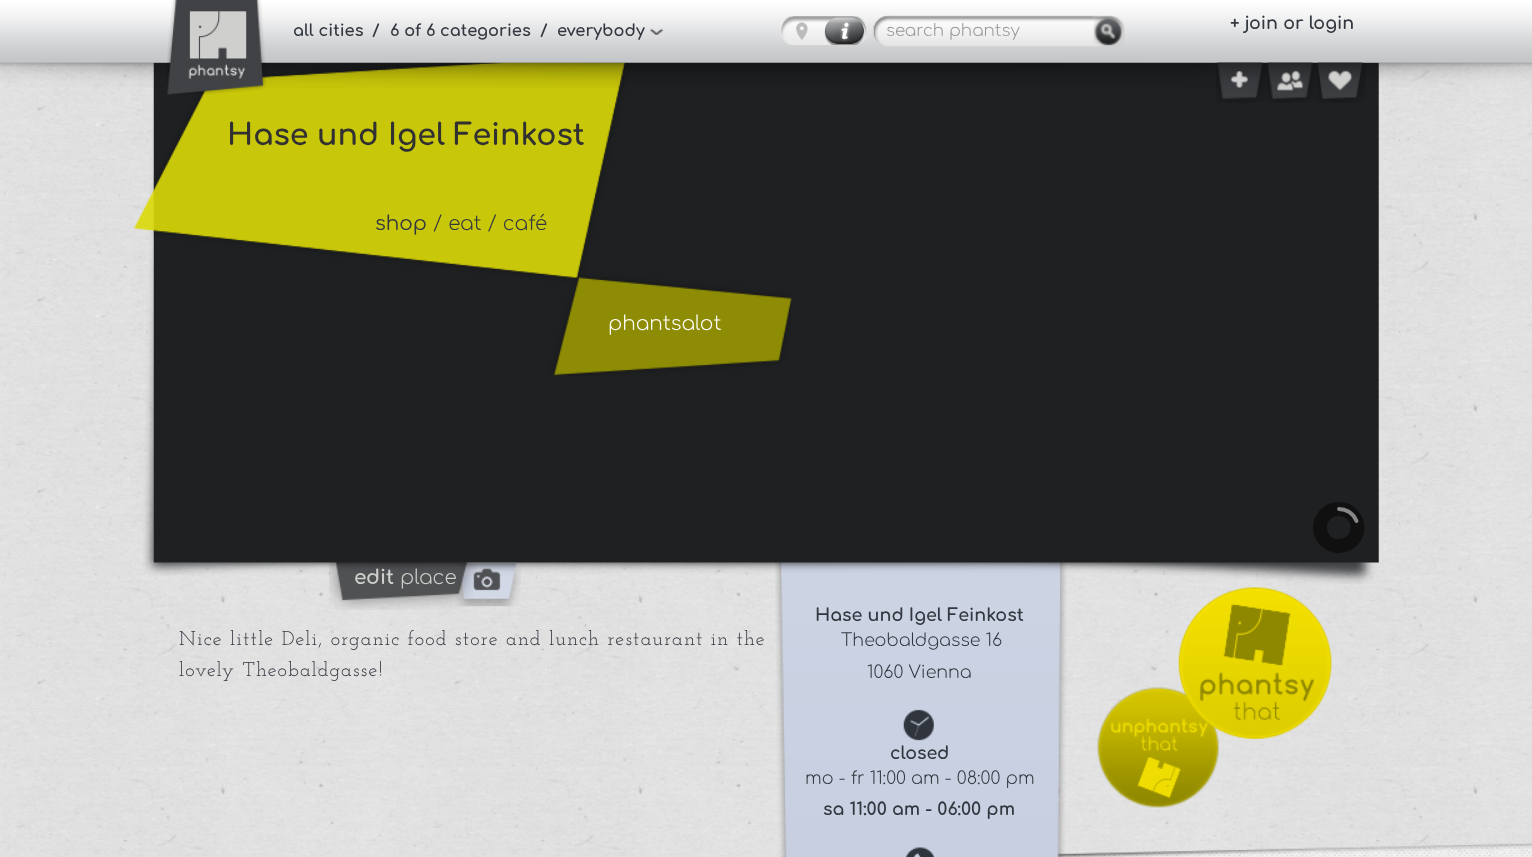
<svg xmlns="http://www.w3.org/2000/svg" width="1532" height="857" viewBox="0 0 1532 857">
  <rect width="100%" height="100%" fill="#ffffff"/>
  <image x="0" y="62" width="1532" height="795" href="img1.png"/>
  <image x="0" y="62" width="1532" height="795" href="img15.png"/>
  <image x="775" y="562" width="292" height="295" href="img20.png"/>
  <image x="143" y="62" width="1236" height="522" href="img16.png"/>
  <image x="133" y="62" width="659" height="314" href="img17.png"/>
  <image x="0" y="0" width="1532" height="67" href="img2.png"/>
  <image x="0" y="62" width="1532" height="26" href="img3.png"/>
  <image x="167" y="0" width="100" height="95" href="img4.png"/>
  <image x="650" y="28" width="14" height="7" href="img5.png"/>
  <text x="293" y="36" font-family="Comfortaa" font-size="16.25" font-weight="bold" fill="#33373f">all cities</text>
  <text x="372" y="36" font-family="Comfortaa" font-size="16.25" font-weight="bold" fill="#33373f">/</text>
  <text x="390" y="36" font-family="Comfortaa" font-size="16.25" font-weight="bold" fill="#33373f">6 of 6 categories</text>
  <text x="540" y="36" font-family="Comfortaa" font-size="16.25" font-weight="bold" fill="#33373f">/</text>
  <text x="557" y="36" font-family="Comfortaa" font-size="16.25" font-weight="bold" fill="#33373f">everybody</text>
  <image x="781" y="16" width="86" height="29" href="img6.png"/>
  <image x="873" y="15" width="221" height="32" href="img7.png"/>
  <text x="886" y="36" font-family="Comfortaa" font-size="16.75" font-weight="300" fill="#979797">search phantsy</text>
  <image x="1093" y="15" width="32" height="32" href="img8.png"/>
  <text x="1230" y="29" font-family="Comfortaa" font-size="17.5" font-weight="bold" fill="#33373f">+ join or login</text>
  <image x="1216" y="62" width="50" height="41" href="img9.png"/>
  <image x="1230" y="71" width="18" height="17" href="img10.png"/>
  <image x="1266" y="62" width="50" height="41" href="img11.png"/>
  <image x="1277" y="70" width="27" height="21" href="img12.png"/>
  <image x="1316" y="62" width="50" height="41" href="img13.png"/>
  <image x="1328" y="70" width="25" height="21" href="img14.png"/>
  <text x="227" y="145" font-family="Comfortaa" font-size="30" font-weight="bold" fill="#313131">Hase und Igel Feinkost</text>
  <text x="375" y="230" font-family="Comfortaa" font-size="20" fill="#33373f">shop</text>
  <text x="433" y="230" font-family="Comfortaa" font-size="20" font-weight="300" fill="#33373f">/ eat / café</text>
  <text x="608" y="330" font-family="Comfortaa" font-size="20" font-weight="300" fill="#ffffff">phantsalot</text>
  <path d="M1339 509C1349 509 1357.5 517 1357.5 527.5C1357.5 538 1349 546 1339 546C1328.5 546.5 1320 538 1320 527.5C1320 517 1328.5 509 1338.5 509" fill="none" stroke="#101011" stroke-width="13.8"/>
  <path d="M1339 509C1346.5 509 1353.5 513.5 1356.5 521" fill="none" stroke="#878788" stroke-width="3.8" stroke-linecap="round"/>
  <image x="454" y="562" width="67" height="45" href="img19.png"/>
  <image x="329" y="562" width="148" height="48" href="img18.png"/>
  <text x="354" y="584" font-family="Comfortaa" font-size="20" font-weight="bold" fill="#cfcfce">edit</text>
  <text x="400" y="584" font-family="Comfortaa" font-size="20" font-weight="300" fill="#cfcfce">place</text>
  <text x="179" y="645" font-family="Josefin Slab" font-size="20" letter-spacing="1.25" fill="#33373f">Nice little Deli, organic food store and lunch restaurant in the</text>
  <text x="179" y="676" font-family="Josefin Slab" font-size="20" letter-spacing="1.25" fill="#33373f">lovely Theobaldgasse!</text>
  <text x="815" y="621" font-family="Comfortaa" font-size="17.5" font-weight="bold" fill="#33373f">Hase und Igel Feinkost</text>
  <text x="841" y="646" font-family="Comfortaa" font-size="17.5" font-weight="300" fill="#33373f">Theobaldgasse 16</text>
  <text x="867" y="678" font-family="Comfortaa" font-size="17.5" font-weight="300" fill="#33373f">1060 Vienna</text>
  <image x="903" y="709" width="31" height="32" href="img21.png"/>
  <text x="890" y="759" font-family="Comfortaa" font-size="17.5" font-weight="bold" fill="#33373f">closed</text>
  <text x="805" y="784" font-family="Comfortaa" font-size="17.5" font-weight="300" fill="#33373f">mo - fr 11:00 am - 08:00 pm</text>
  <text x="823" y="815" font-family="Comfortaa" font-size="17.5" font-weight="bold" fill="#33373f">sa 11:00 am - 06:00 pm</text>
  <image x="905" y="847" width="30" height="10" href="img22.png"/>
  <image x="1097" y="687" width="122" height="121" href="img23.png"/>
  <image x="1178" y="587" width="154" height="152" href="img24.png"/>
</svg>
